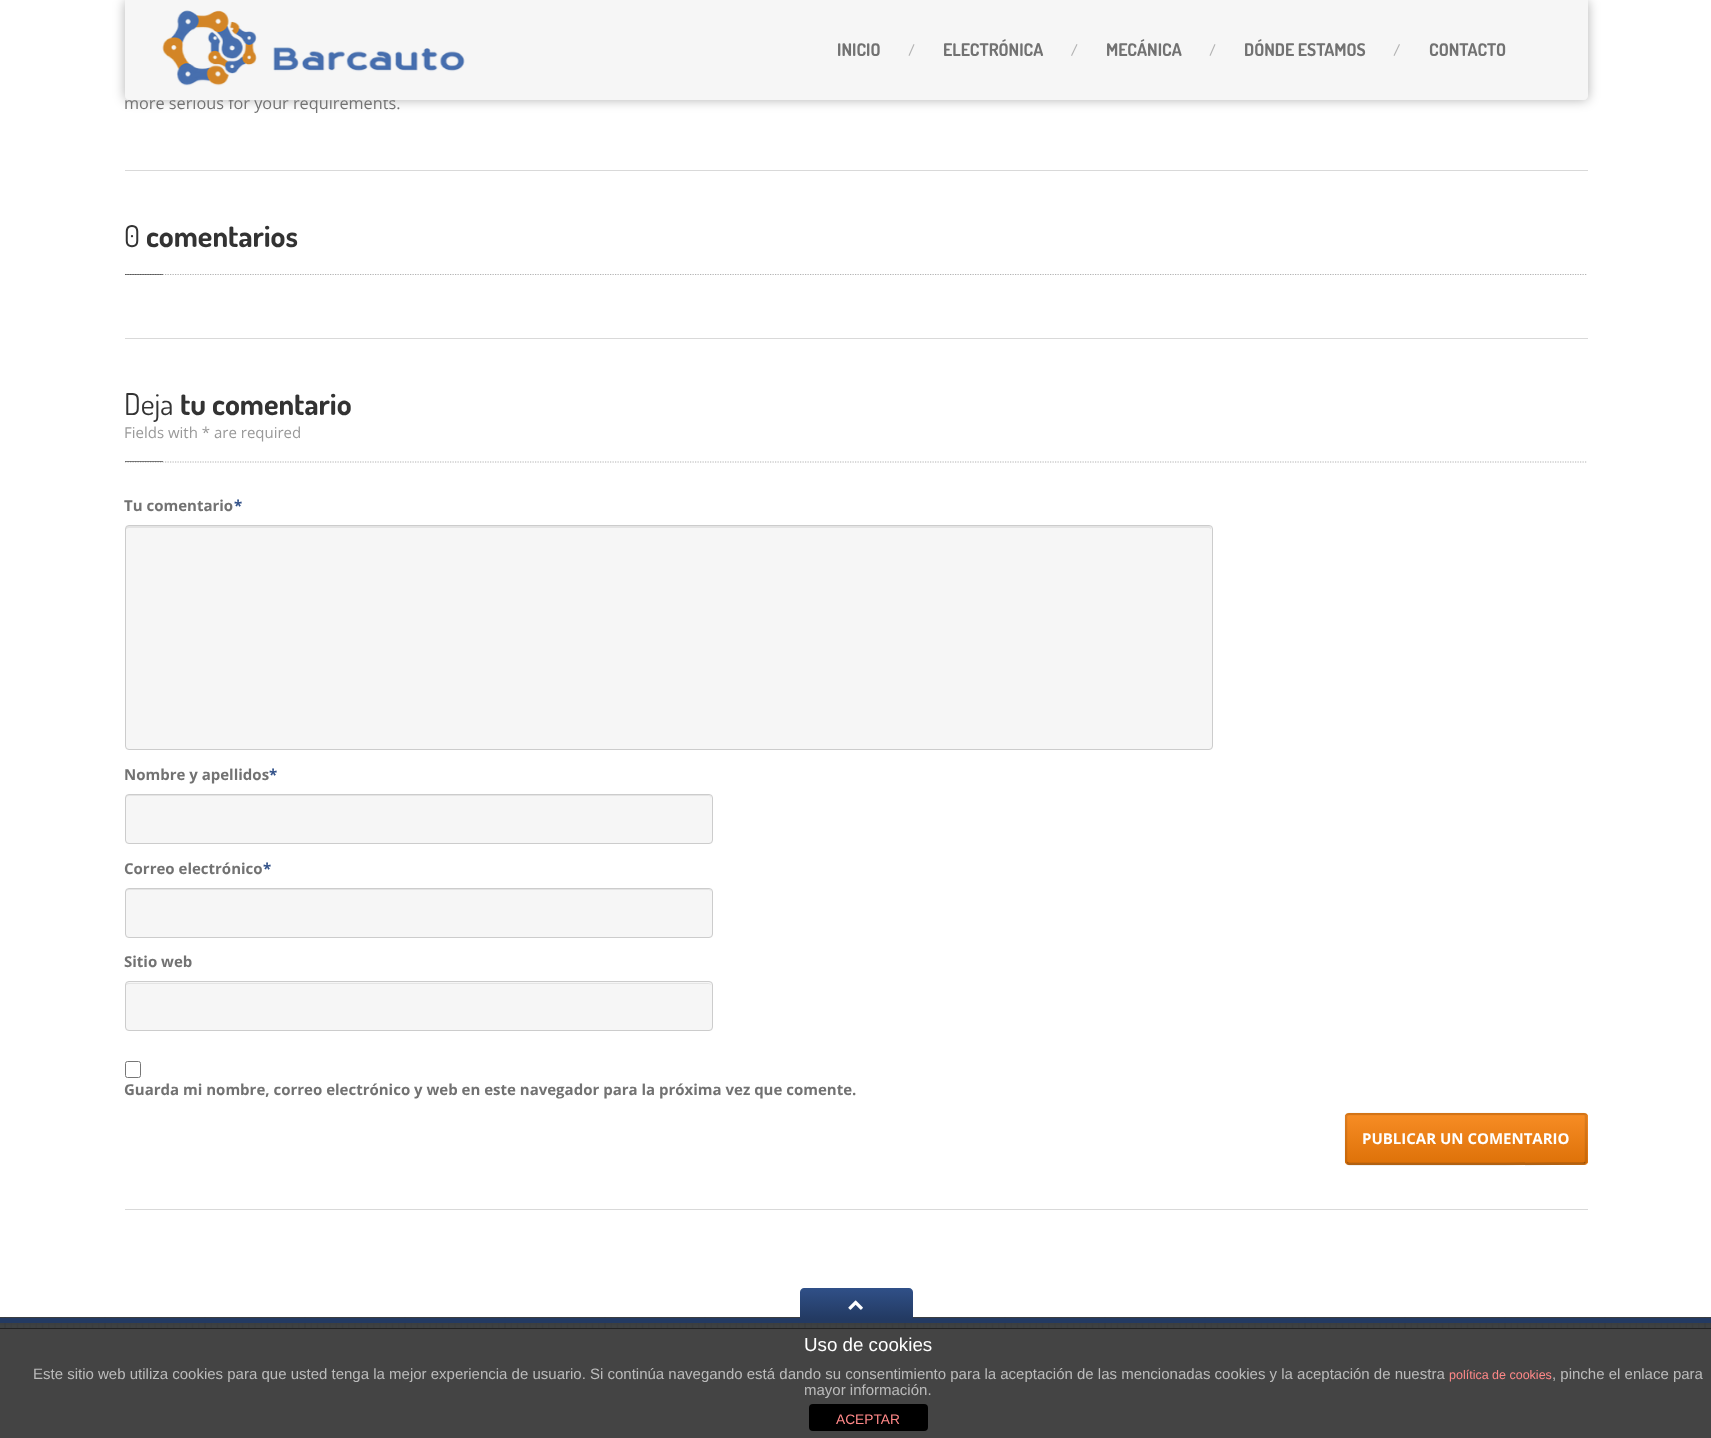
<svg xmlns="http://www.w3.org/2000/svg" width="1711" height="1438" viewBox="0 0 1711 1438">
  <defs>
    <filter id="blur1" x="-50%" y="-200%" width="200%" height="500%"><feGaussianBlur stdDeviation="6"/></filter>
    <clipPath id="clip1"><rect x="1345" y="1113" width="243" height="52" rx="4"/></clipPath>
    <linearGradient id="g1" gradientUnits="userSpaceOnUse" x1="1466" y1="1115" x2="1466" y2="1163"><stop offset="0" stop-color="#f68c24"/><stop offset="1" stop-color="#de7209"/></linearGradient>
    <linearGradient id="g2" gradientUnits="userSpaceOnUse" x1="856" y1="1288" x2="856" y2="1319"><stop offset="0" stop-color="#305088"/><stop offset="1" stop-color="#233a62"/></linearGradient>
  </defs>
  <rect width="100%" height="100%" fill="#ffffff"/>
  <rect x="125" y="0" width="1463" height="100" rx="4" fill="#000000" fill-opacity="0.3" filter="url(#blur1)"/>
  <text x="124" y="109" font-family="Open Sans" font-size="16.25" fill="#727272">more serious for your requirements.</text>
  <path d="M125 0H1588V96C1588 98 1586 100 1584 100H129C127 100 125 98 125 96Z" fill="#f6f6f6"/>
  <image x="162" y="10" width="303" height="76" href="img1.png"/>
  <text x="837" y="56" font-family="Dosis" font-size="17.5" font-weight="bold" fill="#727272">INICIO</text>
  <path d="M913.5 44L914.5 44.5L909.5 56L908.5 55.5Z" fill="#b4b4b4"/>
  <text x="943" y="56" font-family="Dosis" font-size="17.5" font-weight="bold" fill="#727272">ELECTRÓNICA</text>
  <path d="M1076.5 44L1077.5 44.5L1072 56L1071 55.5Z" fill="#b4b4b4"/>
  <text x="1106" y="56" font-family="Dosis" font-size="17.5" font-weight="bold" fill="#727272">MECÁNICA</text>
  <path d="M1214.5 44L1215.5 44.5L1210.5 56L1209.5 55.5Z" fill="#b4b4b4"/>
  <text x="1244" y="56" font-family="Dosis" font-size="17.5" font-weight="bold" fill="#727272">DÓNDE ESTAMOS</text>
  <path d="M1399 44L1400 44.5L1394.5 56L1393.5 55.5Z" fill="#b4b4b4"/>
  <text x="1429" y="56" font-family="Dosis" font-size="17.5" font-weight="bold" fill="#727272">CONTACTO</text>
  <rect x="125" y="170" width="1463" height="1" fill="#d9d9d9"/>
  <path d="M125 274.5H1587.5" fill="none" stroke="#b3b3b3" stroke-width="1.2" stroke-dasharray="1.25 1.25"/>
  <text x="124" y="247" font-family="Dosis" font-size="30" fill="#333333">0</text>
  <text x="146" y="247" font-family="Dosis" font-size="30" font-weight="bold" fill="#333333">comentarios</text>
  <rect x="125" y="274" width="38" height="1" fill="#000000" fill-opacity="0.5"/>
  <rect x="125" y="338" width="1463" height="1" fill="#d9d9d9"/>
  <path d="M125 462H1587.5" fill="none" stroke="#b3b3b3" stroke-width="1.2" stroke-dasharray="1.25 1.25"/>
  <text x="124" y="415" font-family="Dosis" font-size="30" fill="#333333">Deja</text>
  <text x="180" y="415" font-family="Dosis" font-size="30" font-weight="bold" fill="#333333">tu comentario</text>
  <text x="124" y="438" font-family="Open Sans" font-size="15" fill="#999999">Fields with * are required</text>
  <rect x="125" y="461" width="38" height="1" fill="#000000" fill-opacity="0.5"/>
  <text x="124" y="511" font-family="Open Sans" font-size="15" font-weight="bold" fill="#727272">Tu comentario</text>
  <text x="234" y="511" font-family="Open Sans" font-size="15" font-weight="bold" fill="#305088">*</text>
  <rect x="125" y="525" width="1088" height="225" rx="4" fill="#f6f6f6"/>
  <path d="M129 528H1209C1210 528 1211 529 1211 530C1211 528 1211 526 1208 526H128C126 526 126 528 126 530C126 529 127 528 129 528Z" fill="#e4e4e4"/>
  <rect x="125.5" y="525.5" width="1087" height="224" rx="3.5" fill="none" stroke="#cccccc"/>
  <text x="124" y="780" font-family="Open Sans" font-size="15" font-weight="bold" fill="#727272">Nombre y apellidos</text>
  <text x="269" y="780" font-family="Open Sans" font-size="15" font-weight="bold" fill="#305088">*</text>
  <rect x="125" y="794" width="588" height="50" rx="4" fill="#f6f6f6"/>
  <path d="M129 796H709C710 796 711 797 711 799V798C711 796 710 795 708 795H128C127 795 126 796 126 798V799C126 797 127 796 129 796Z" fill="#e4e4e4"/>
  <rect x="125.5" y="794.5" width="587" height="49" rx="3.5" fill="none" stroke="#cccccc"/>
  <text x="124" y="874" font-family="Open Sans" font-size="15" font-weight="bold" fill="#727272">Correo electrónico</text>
  <text x="263" y="874" font-family="Open Sans" font-size="15" font-weight="bold" fill="#305088">*</text>
  <rect x="125" y="888" width="588" height="50" rx="4" fill="#f6f6f6"/>
  <path d="M129 890H709C710 890 711 891 711 892C711 890 710 889 708 889H128C127 889 126 890 126 892C126 891 127 890 129 890Z" fill="#e4e4e4"/>
  <rect x="125.5" y="888.5" width="587" height="49" rx="3.5" fill="none" stroke="#cccccc"/>
  <text x="124" y="967" font-family="Open Sans" font-size="15" font-weight="bold" fill="#727272">Sitio web</text>
  <rect x="125" y="981" width="588" height="50" rx="4" fill="#f6f6f6"/>
  <path d="M129 984H709C710 984 711 985 711 986C711 984 710 983 708 983H128C127 983 126 984 126 986C126 985 127 984 129 984Z" fill="#e4e4e4"/>
  <rect x="125.5" y="981.5" width="587" height="49" rx="3.5" fill="none" stroke="#cccccc"/>
  <rect x="125.5" y="1061.5" width="15" height="16" rx="2" fill="none" stroke="#767676"/>
  <text x="124" y="1095" font-family="Open Sans" font-size="15" font-weight="bold" fill="#727272">Guarda mi nombre, correo electrónico y web en este navegador para la próxima vez que comente.</text>
  <rect x="1345" y="1113" width="243" height="52" rx="4" fill="#ed8219"/>
  <g clip-path="url(#clip1)">
    <rect x="1345" y="1115" width="243" height="48" fill="url(#g1)"/>
  </g>
  <path d="M1585.5 1163L1584 1163.5L1505.5 1164H1349L1347 1163" fill="none" stroke="#000000" stroke-opacity="0.25" stroke-width="2.5"/>
  <path d="M1347 1163L1346 1161V1116L1347 1114.5L1349 1114H1584L1585.5 1114.5L1586 1116V1161L1585.5 1163" fill="none" stroke="#000000" stroke-opacity="0.1" stroke-width="2.5"/>
  <text x="1362" y="1144" font-family="Open Sans" font-size="15" font-weight="bold" fill="#ffffff">PUBLICAR UN COMENTARIO</text>
  <rect x="125" y="1209" width="1463" height="1" fill="#d9d9d9"/>
  <image x="0" y="1317" width="1711" height="11" href="img2.png"/>
  <rect x="0" y="1318" width="1711" height="5" fill="#233a62"/>
  <path d="M804 1288H909C911 1288 913 1290 913 1292V1319H800V1292C800 1290 802 1288 804 1288Z" fill="url(#g2)"/>
  <image x="848" y="1300" width="15" height="10" href="img3.png"/>
  <rect x="0" y="1329" width="1711" height="109" fill="#444444"/>
  <rect x="0" y="1328" width="1711" height="1" fill="#222222"/>
  <text x="804" y="1351" font-family="Liberation Sans" font-size="18.75" fill="#ffffff">Uso de cookies</text>
  <text x="33" y="1379" font-family="Liberation Sans" font-size="15" fill="#bbbbbb">Este sitio web utiliza cookies para que usted tenga la mejor experiencia de usuario. Si continúa navegando está dando su consentimiento para la aceptación de las mencionadas cookies y la aceptación de nuestra</text>
  <text x="1449" y="1379" font-family="Liberation Sans" font-size="12.5" fill="#ff8888">política de cookies</text>
  <text x="1552" y="1379" font-family="Liberation Sans" font-size="15" fill="#bbbbbb">, pinche el enlace para</text>
  <text x="804" y="1395" font-family="Liberation Sans" font-size="15" fill="#bbbbbb">mayor información.</text>
  <rect x="809" y="1404" width="119" height="27" rx="4" fill="#000000"/>
  <text x="836" y="1424" font-family="Liberation Sans" font-size="13.75" fill="#ff8888">ACEPTAR</text>
</svg>
